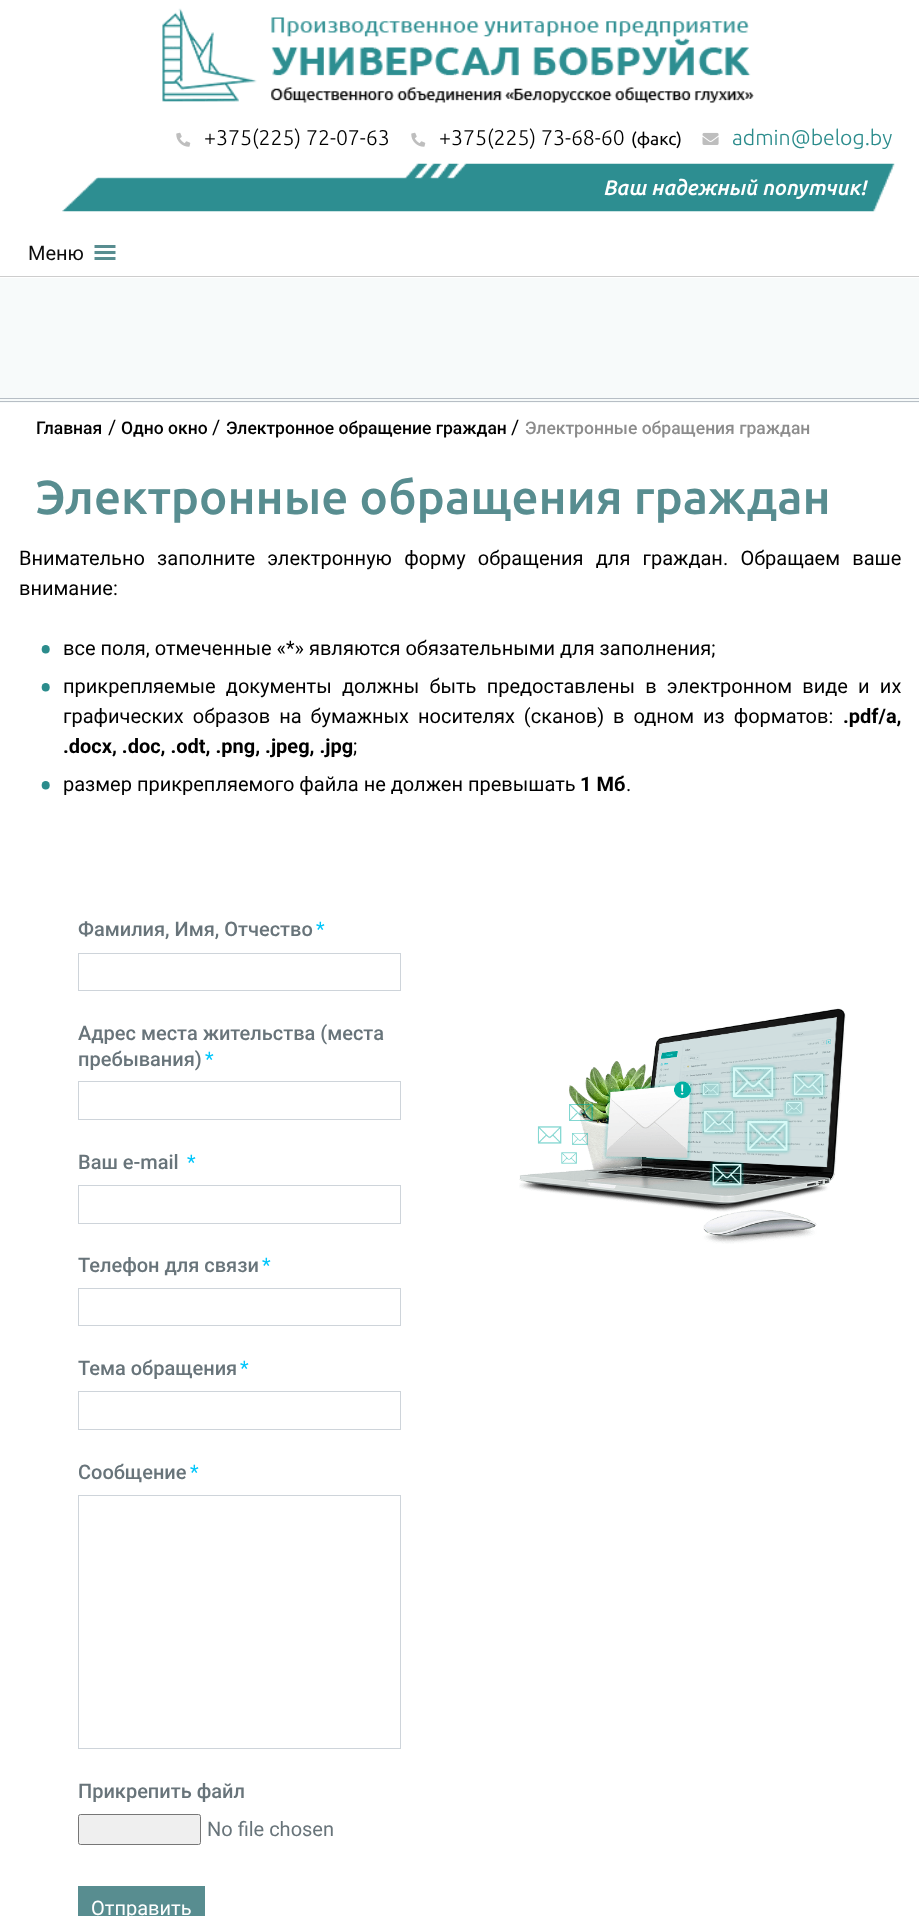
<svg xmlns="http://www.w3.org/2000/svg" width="919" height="1916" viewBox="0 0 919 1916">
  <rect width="100%" height="100%" fill="#ffffff"/>
  <image x="162" y="8" width="592" height="95" href="img1.png"/>
  <image x="176" y="132" width="15" height="15" href="img2.png"/>
  <text x="204" y="145" font-family="Ubuntu" font-size="21.25" font-weight="300" fill="#000000">+375(225) 72-07-63</text>
  <image x="411" y="132" width="15" height="15" href="img2.png"/>
  <text x="439" y="145" font-family="Ubuntu" font-size="21.25" font-weight="300" fill="#000000">+375(225) 73-68-60</text>
  <text x="631" y="145" font-family="Ubuntu" font-size="17.5" fill="#000000">(факс)</text>
  <image x="702" y="132" width="17" height="13" href="img3.png"/>
  <text x="732" y="145" font-family="Ubuntu" font-size="21.25" font-weight="300" fill="#2b8c8c">admin@belog.by</text>
  <image x="62" y="163" width="833" height="49" href="img4.png"/>
  <text x="603" y="195" font-family="Ubuntu" font-size="21" font-weight="500" font-style="italic" fill="#ffffff">Ваш надежный попутчик!</text>
  <rect x="0" y="276" width="919" height="1" fill="#cdcdcd"/>
  <text x="28" y="260" font-family="Roboto" font-size="20" fill="#0d0d0d">Меню</text>
  <image x="94" y="245" width="22" height="15" href="img5.png"/>
  <rect x="0" y="278" width="919" height="125" fill="#f7fafa"/>
  <rect x="0" y="398" width="919" height="1" fill="#b7bec5"/>
  <rect x="0" y="401" width="919" height="1" fill="#b7bec5"/>
  <text x="36" y="434" font-family="Roboto" font-size="17.5" font-weight="500" fill="#000000">Главная</text>
  <text x="108" y="434" font-family="Roboto" font-size="20" fill="#000000">/</text>
  <text x="121" y="434" font-family="Roboto" font-size="17.5" font-weight="500" fill="#000000">Одно окно</text>
  <text x="212" y="434" font-family="Roboto" font-size="20" fill="#000000">/</text>
  <text x="226" y="434" font-family="Roboto" font-size="17.5" font-weight="500" fill="#000000">Электронное обращение граждан</text>
  <text x="511" y="434" font-family="Roboto" font-size="20" fill="#000000">/</text>
  <text x="525" y="434" font-family="Roboto" font-size="17.5" font-weight="500" fill="#8c8c8c">Электронные обращения граждан</text>
  <text x="36" y="514" font-family="Ubuntu" font-size="47.5" font-weight="500" fill="#588d90">Электронные обращения граждан</text>
  <text x="19" y="565" word-spacing="7.25" font-family="Roboto" font-size="20" fill="#000000">Внимательно заполните электронную форму обращения для граждан. Обращаем ваше</text>
  <text x="19" y="595" font-family="Roboto" font-size="20" fill="#000000">внимание:</text>
  <text x="39" y="664" font-family="Roboto" font-size="40" fill="#2b8c8c">•</text>
  <text x="63" y="655" font-family="Roboto" font-size="20" fill="#000000">все поля, отмеченные «*» являются обязательными для заполнения;</text>
  <text x="39" y="702" font-family="Roboto" font-size="40" fill="#2b8c8c">•</text>
  <text x="63" y="693" word-spacing="5.25" font-family="Roboto" font-size="20" fill="#000000">прикрепляемые документы должны быть предоставлены в электронном виде и их</text>
  <text x="63" y="723" word-spacing="4" font-family="Roboto" font-size="20" fill="#000000">графических образов на бумажных носителях (сканов) в одном из форматов:</text>
  <text x="843" y="723" font-family="Roboto" font-size="20" font-weight="bold" fill="#000000">.pdf/a,</text>
  <text x="63" y="753" font-family="Roboto" font-size="20" font-weight="bold" fill="#000000">.docx, .doc, .odt, .png, .jpeg, .jpg</text>
  <text x="353" y="753" font-family="Roboto" font-size="20" fill="#000000">;</text>
  <text x="39" y="800" font-family="Roboto" font-size="40" fill="#2b8c8c">•</text>
  <text x="63" y="791" font-family="Roboto" font-size="20" fill="#000000">размер прикрепляемого файла не должен превышать</text>
  <text x="580" y="791" font-family="Roboto" font-size="20" font-weight="bold" fill="#000000">1 Мб</text>
  <text x="626" y="791" font-family="Roboto" font-size="20" fill="#000000">.</text>
  <text x="78" y="936" font-family="Roboto" font-size="20" font-weight="500" fill="#68747a">Фамилия, Имя, Отчество</text>
  <text x="316" y="936" font-family="Roboto" font-size="20" fill="#00c6fb">*</text>
  <rect x="78.5" y="953.5" width="322" height="37" fill="none" stroke="#ced4da"/>
  <text x="78" y="1040" font-family="Roboto" font-size="20" font-weight="500" fill="#68747a">Адрес места жительства (места</text>
  <text x="78" y="1066" font-family="Roboto" font-size="20" font-weight="500" fill="#68747a">пребывания)</text>
  <text x="205" y="1066" font-family="Roboto" font-size="20" fill="#00c6fb">*</text>
  <rect x="78.5" y="1081.5" width="322" height="38" fill="none" stroke="#ced4da"/>
  <text x="78" y="1169" font-family="Roboto" font-size="20" font-weight="500" fill="#68747a">Ваш e-mail</text>
  <text x="187" y="1169" font-family="Roboto" font-size="20" fill="#00c6fb">*</text>
  <rect x="78.5" y="1185.5" width="322" height="38" fill="none" stroke="#ced4da"/>
  <text x="78" y="1272" font-family="Roboto" font-size="20" font-weight="500" fill="#68747a">Телефон для связи</text>
  <text x="262" y="1272" font-family="Roboto" font-size="20" fill="#00c6fb">*</text>
  <rect x="78.5" y="1288.5" width="322" height="37" fill="none" stroke="#ced4da"/>
  <text x="78" y="1375" font-family="Roboto" font-size="20" font-weight="500" fill="#68747a">Тема обращения</text>
  <text x="240" y="1375" font-family="Roboto" font-size="20" fill="#00c6fb">*</text>
  <rect x="78.5" y="1391.5" width="322" height="38" fill="none" stroke="#ced4da"/>
  <text x="78" y="1479" font-family="Roboto" font-size="20" font-weight="500" fill="#68747a">Сообщение</text>
  <text x="190" y="1479" font-family="Roboto" font-size="20" fill="#00c6fb">*</text>
  <rect x="78.5" y="1495.5" width="322" height="253" fill="none" stroke="#ced4da"/>
  <text x="78" y="1798" font-family="Roboto" font-size="20" font-weight="500" fill="#68747a">Прикрепить файл</text>
  <rect x="78.5" y="1814.5" width="122" height="30" rx="2" fill="#efefef" stroke="#767676"/>
  <text x="207" y="1836" font-family="Roboto" font-size="20" fill="#68747a">No file chosen</text>
  <rect x="78" y="1886" width="127" height="30" fill="#588d90"/>
  <text x="91" y="1915" font-family="Roboto" font-size="20" fill="#ffffff">Отправить</text>
  <image x="519" y="1008" width="327" height="236" href="img6.png"/>
</svg>
